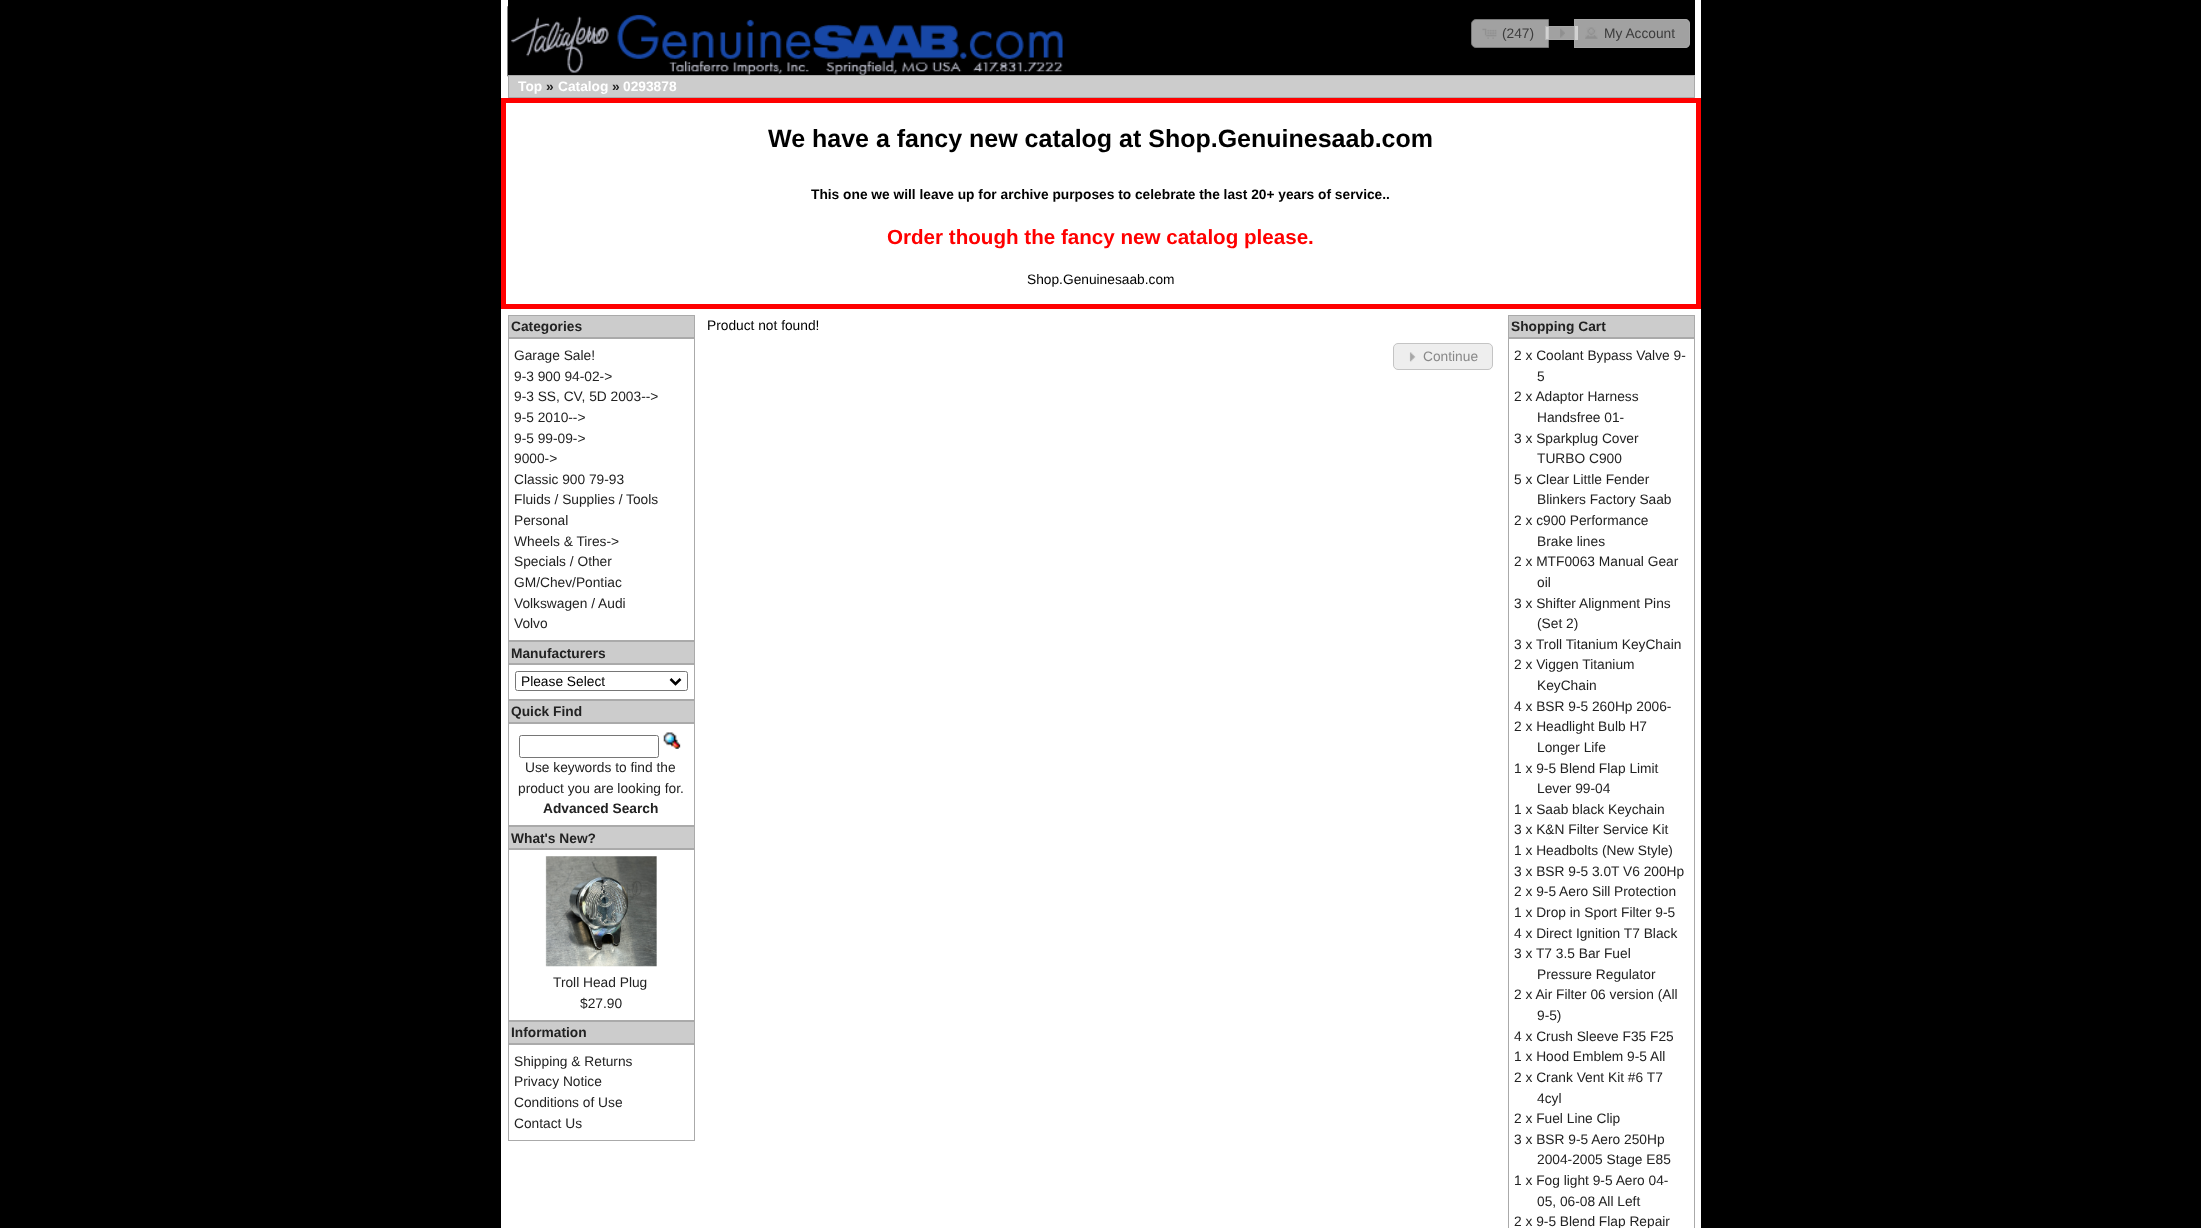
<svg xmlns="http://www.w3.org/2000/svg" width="2201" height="1228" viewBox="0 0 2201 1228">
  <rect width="100%" height="100%" fill="#000000"/>
  <rect x="501" y="0" width="1200" height="1228" fill="#ffffff"/>
  <rect x="508" y="0" width="1187" height="75" fill="#000000"/>
  <image x="507" y="6" width="565" height="71" href="img1.png"/>
  <path d="M1476 19.5H1548.5V47.5H1476C1473.5 47.5 1471.5 45.5 1471.5 43V24C1471.5 21.5 1473.5 19.5 1476 19.5Z" fill="#a1a1a1" stroke="#777777"/>
  <image x="1482" y="28" width="15" height="11" href="img2.png"/>
  <text x="1502" y="38" font-family="Liberation Sans" font-size="13.75" fill="#3c3c3c">(247)</text>
  <rect x="1545" y="26" width="33" height="14" fill="#e6e6e6" fill-opacity="0.7"/>
  <rect x="1545.5" y="26.5" width="32" height="13" fill="none" stroke="#aaaaaa" stroke-opacity="0.7"/>
  <image x="1560" y="28" width="5" height="10" href="img3.png"/>
  <path d="M1574 19H1685C1688 19 1690 21 1690 24V43C1690 46 1688 48 1685 48H1574Z" fill="#e6e6e6" fill-opacity="0.7"/>
  <path d="M1574.5 19.5H1685C1687.5 19.5 1689.5 21.5 1689.5 24V43C1689.5 45.5 1687.5 47.5 1685 47.5H1574.5Z" fill="none" stroke="#aaaaaa" stroke-opacity="0.7"/>
  <image x="1585" y="27" width="13" height="12" href="img4.png"/>
  <text x="1604" y="38" font-family="Liberation Sans" font-size="13.75" fill="#3c3c3c">My Account</text>
  <rect x="508.5" y="75.5" width="1186" height="22" fill="#cccccc" stroke="#aaaaaa"/>
  <text x="518" y="91" font-family="Liberation Sans" font-size="13.75" font-weight="bold" fill="#ffffff">Top</text>
  <text x="546" y="91" font-family="Liberation Sans" font-size="13.75" font-weight="bold" fill="#222222">»</text>
  <text x="558" y="91" font-family="Liberation Sans" font-size="13.75" font-weight="bold" fill="#ffffff">Catalog</text>
  <text x="612" y="91" font-family="Liberation Sans" font-size="13.75" font-weight="bold" fill="#222222">»</text>
  <text x="623" y="91" font-family="Liberation Sans" font-size="13.75" font-weight="bold" fill="#ffffff">0293878</text>
  <rect x="503.5" y="100.5" width="1195" height="206" fill="none" stroke="#ff0000" stroke-width="5"/>
  <text x="768" y="147" font-family="Liberation Sans" font-size="25" font-weight="bold" fill="#000000">We have a fancy new catalog at Shop.Genuinesaab.com</text>
  <text x="811" y="199" font-family="Liberation Sans" font-size="13.75" font-weight="bold" fill="#000000">This one we will leave up for archive purposes to celebrate the last 20+ years of service..</text>
  <text x="887" y="244" font-family="Liberation Sans" font-size="20.6" font-weight="bold" fill="#ff0000">Order though the fancy new catalog please.</text>
  <text x="1027" y="284" font-family="Liberation Sans" font-size="13.75" fill="#000000">Shop.Genuinesaab.com</text>
  <rect x="508.5" y="315.5" width="186" height="22" fill="#cccccc" stroke="#aaaaaa"/>
  <text x="511" y="331" font-family="Liberation Sans" font-size="13.75" font-weight="bold" fill="#222222">Categories</text>
  <rect x="508.5" y="338.5" width="186" height="302" fill="none" stroke="#aaaaaa"/>
  <text x="514" y="360" font-family="Liberation Sans" font-size="13.75" fill="#222222">Garage Sale!</text>
  <text x="514" y="381" font-family="Liberation Sans" font-size="13.75" fill="#222222">9-3 900 94-02-&gt;</text>
  <text x="514" y="401" font-family="Liberation Sans" font-size="13.75" fill="#222222">9-3 SS, CV, 5D 2003--&gt;</text>
  <text x="514" y="422" font-family="Liberation Sans" font-size="13.75" fill="#222222">9-5 2010--&gt;</text>
  <text x="514" y="443" font-family="Liberation Sans" font-size="13.75" fill="#222222">9-5 99-09-&gt;</text>
  <text x="514" y="463" font-family="Liberation Sans" font-size="13.75" fill="#222222">9000-&gt;</text>
  <text x="514" y="484" font-family="Liberation Sans" font-size="13.75" fill="#222222">Classic 900 79-93</text>
  <text x="514" y="504" font-family="Liberation Sans" font-size="13.75" fill="#222222">Fluids / Supplies / Tools</text>
  <text x="514" y="525" font-family="Liberation Sans" font-size="13.75" fill="#222222">Personal</text>
  <text x="514" y="546" font-family="Liberation Sans" font-size="13.75" fill="#222222">Wheels &amp; Tires-&gt;</text>
  <text x="514" y="566" font-family="Liberation Sans" font-size="13.75" fill="#222222">Specials / Other</text>
  <text x="514" y="587" font-family="Liberation Sans" font-size="13.75" fill="#222222">GM/Chev/Pontiac</text>
  <text x="514" y="608" font-family="Liberation Sans" font-size="13.75" fill="#222222">Volkswagen / Audi</text>
  <text x="514" y="628" font-family="Liberation Sans" font-size="13.75" fill="#222222">Volvo</text>
  <rect x="508.5" y="641.5" width="186" height="22" fill="#cccccc" stroke="#aaaaaa"/>
  <text x="511" y="658" font-family="Liberation Sans" font-size="13.75" font-weight="bold" fill="#222222">Manufacturers</text>
  <rect x="508.5" y="664.5" width="186" height="35" fill="none" stroke="#aaaaaa"/>
  <rect x="515.5" y="671.5" width="172" height="19" rx="2" fill="none" stroke="#767676"/>
  <path d="M670.5 679L675.5 684L680.5 679" fill="none" stroke="#000000" stroke-width="2.5"/>
  <text x="521" y="686" font-family="Liberation Sans" font-size="13.75" fill="#000000">Please Select</text>
  <rect x="508.5" y="700.5" width="186" height="22" fill="#cccccc" stroke="#aaaaaa"/>
  <text x="511" y="716" font-family="Liberation Sans" font-size="13.75" font-weight="bold" fill="#222222">Quick Find</text>
  <rect x="508.5" y="723.5" width="186" height="102" fill="none" stroke="#aaaaaa"/>
  <rect x="519.5" y="735.5" width="139" height="22" rx="2" fill="none" stroke="#767676"/>
  <image x="663" y="732" width="18" height="17" href="img5.png"/>
  <text x="525" y="772" font-family="Liberation Sans" font-size="13.75" fill="#222222">Use keywords to find the</text>
  <text x="518" y="793" font-family="Liberation Sans" font-size="13.75" fill="#222222">product you are looking for.</text>
  <text x="543" y="813" font-family="Liberation Sans" font-size="13.75" font-weight="bold" fill="#222222">Advanced Search</text>
  <rect x="508.5" y="826.5" width="186" height="22" fill="#cccccc" stroke="#aaaaaa"/>
  <text x="511" y="843" font-family="Liberation Sans" font-size="13.75" font-weight="bold" fill="#222222">What's New?</text>
  <rect x="508.5" y="849.5" width="186" height="171" fill="none" stroke="#aaaaaa"/>
  <image x="545" y="856" width="112" height="111" href="img6.png"/>
  <text x="553" y="987" font-family="Liberation Sans" font-size="13.75" fill="#222222">Troll Head Plug</text>
  <text x="580" y="1008" font-family="Liberation Sans" font-size="13.75" fill="#222222">$27.90</text>
  <rect x="508.5" y="1021.5" width="186" height="22" fill="#cccccc" stroke="#aaaaaa"/>
  <text x="511" y="1037" font-family="Liberation Sans" font-size="13.75" font-weight="bold" fill="#222222">Information</text>
  <rect x="508.5" y="1044.5" width="186" height="96" fill="none" stroke="#aaaaaa"/>
  <text x="514" y="1066" font-family="Liberation Sans" font-size="13.75" fill="#222222">Shipping &amp; Returns</text>
  <text x="514" y="1086" font-family="Liberation Sans" font-size="13.75" fill="#222222">Privacy Notice</text>
  <text x="514" y="1107" font-family="Liberation Sans" font-size="13.75" fill="#222222">Conditions of Use</text>
  <text x="514" y="1128" font-family="Liberation Sans" font-size="13.75" fill="#222222">Contact Us</text>
  <text x="707" y="330" font-family="Liberation Sans" font-size="13.75" fill="#000000">Product not found!</text>
  <rect x="1393.5" y="343.5" width="99" height="26" rx="4.5" fill="#eeeeee" stroke="#c4c4c4"/>
  <image x="1409" y="352" width="7" height="10" href="img7.png"/>
  <text x="1423" y="361" font-family="Liberation Sans" font-size="13.75" fill="#888888">Continue</text>
  <rect x="1508.5" y="315.5" width="186" height="22" fill="#cccccc" stroke="#aaaaaa"/>
  <text x="1511" y="331" font-family="Liberation Sans" font-size="13.75" font-weight="bold" fill="#222222">Shopping Cart</text>
  <rect x="1508.5" y="338.5" width="186" height="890" fill="none" stroke="#aaaaaa"/>
  <text x="1514" y="360" font-family="Liberation Sans" font-size="13.75" fill="#222222">2 x Coolant Bypass Valve 9-</text>
  <text x="1537" y="381" font-family="Liberation Sans" font-size="13.75" fill="#222222">5</text>
  <text x="1514" y="401" font-family="Liberation Sans" font-size="13.75" fill="#222222">2 x Adaptor Harness</text>
  <text x="1537" y="422" font-family="Liberation Sans" font-size="13.75" fill="#222222">Handsfree 01-</text>
  <text x="1514" y="443" font-family="Liberation Sans" font-size="13.75" fill="#222222">3 x Sparkplug Cover</text>
  <text x="1537" y="463" font-family="Liberation Sans" font-size="13.75" fill="#222222">TURBO C900</text>
  <text x="1514" y="484" font-family="Liberation Sans" font-size="13.75" fill="#222222">5 x Clear Little Fender</text>
  <text x="1537" y="504" font-family="Liberation Sans" font-size="13.75" fill="#222222">Blinkers Factory Saab</text>
  <text x="1514" y="525" font-family="Liberation Sans" font-size="13.75" fill="#222222">2 x c900 Performance</text>
  <text x="1537" y="546" font-family="Liberation Sans" font-size="13.75" fill="#222222">Brake lines</text>
  <text x="1514" y="566" font-family="Liberation Sans" font-size="13.75" fill="#222222">2 x MTF0063 Manual Gear</text>
  <text x="1537" y="587" font-family="Liberation Sans" font-size="13.75" fill="#222222">oil</text>
  <text x="1514" y="608" font-family="Liberation Sans" font-size="13.75" fill="#222222">3 x Shifter Alignment Pins</text>
  <text x="1537" y="628" font-family="Liberation Sans" font-size="13.75" fill="#222222">(Set 2)</text>
  <text x="1514" y="649" font-family="Liberation Sans" font-size="13.75" fill="#222222">3 x Troll Titanium KeyChain</text>
  <text x="1514" y="669" font-family="Liberation Sans" font-size="13.75" fill="#222222">2 x Viggen Titanium</text>
  <text x="1537" y="690" font-family="Liberation Sans" font-size="13.75" fill="#222222">KeyChain</text>
  <text x="1514" y="711" font-family="Liberation Sans" font-size="13.75" fill="#222222">4 x BSR 9-5 260Hp 2006-</text>
  <text x="1514" y="731" font-family="Liberation Sans" font-size="13.75" fill="#222222">2 x Headlight Bulb H7</text>
  <text x="1537" y="752" font-family="Liberation Sans" font-size="13.75" fill="#222222">Longer Life</text>
  <text x="1514" y="773" font-family="Liberation Sans" font-size="13.75" fill="#222222">1 x 9-5 Blend Flap Limit</text>
  <text x="1537" y="793" font-family="Liberation Sans" font-size="13.75" fill="#222222">Lever 99-04</text>
  <text x="1514" y="814" font-family="Liberation Sans" font-size="13.75" fill="#222222">1 x Saab black Keychain</text>
  <text x="1514" y="834" font-family="Liberation Sans" font-size="13.75" fill="#222222">3 x K&amp;N Filter Service Kit</text>
  <text x="1514" y="855" font-family="Liberation Sans" font-size="13.75" fill="#222222">1 x Headbolts (New Style)</text>
  <text x="1514" y="876" font-family="Liberation Sans" font-size="13.75" fill="#222222">3 x BSR 9-5 3.0T V6 200Hp</text>
  <text x="1514" y="896" font-family="Liberation Sans" font-size="13.75" fill="#222222">2 x 9-5 Aero Sill Protection</text>
  <text x="1514" y="917" font-family="Liberation Sans" font-size="13.75" fill="#222222">1 x Drop in Sport Filter 9-5</text>
  <text x="1514" y="938" font-family="Liberation Sans" font-size="13.75" fill="#222222">4 x Direct Ignition T7 Black</text>
  <text x="1514" y="958" font-family="Liberation Sans" font-size="13.75" fill="#222222">3 x T7 3.5 Bar Fuel</text>
  <text x="1537" y="979" font-family="Liberation Sans" font-size="13.75" fill="#222222">Pressure Regulator</text>
  <text x="1514" y="999" font-family="Liberation Sans" font-size="13.75" fill="#222222">2 x Air Filter 06 version (All</text>
  <text x="1537" y="1020" font-family="Liberation Sans" font-size="13.75" fill="#222222">9-5)</text>
  <text x="1514" y="1041" font-family="Liberation Sans" font-size="13.75" fill="#222222">4 x Crush Sleeve F35 F25</text>
  <text x="1514" y="1061" font-family="Liberation Sans" font-size="13.75" fill="#222222">1 x Hood Emblem 9-5 All</text>
  <text x="1514" y="1082" font-family="Liberation Sans" font-size="13.75" fill="#222222">2 x Crank Vent Kit #6 T7</text>
  <text x="1537" y="1103" font-family="Liberation Sans" font-size="13.75" fill="#222222">4cyl</text>
  <text x="1514" y="1123" font-family="Liberation Sans" font-size="13.75" fill="#222222">2 x Fuel Line Clip</text>
  <text x="1514" y="1144" font-family="Liberation Sans" font-size="13.75" fill="#222222">3 x BSR 9-5 Aero 250Hp</text>
  <text x="1537" y="1164" font-family="Liberation Sans" font-size="13.75" fill="#222222">2004-2005 Stage E85</text>
  <text x="1514" y="1185" font-family="Liberation Sans" font-size="13.75" fill="#222222">1 x Fog light 9-5 Aero 04-</text>
  <text x="1537" y="1206" font-family="Liberation Sans" font-size="13.75" fill="#222222">05, 06-08 All Left</text>
  <text x="1514" y="1226" font-family="Liberation Sans" font-size="13.75" fill="#222222">2 x 9-5 Blend Flap Repair</text>
</svg>
